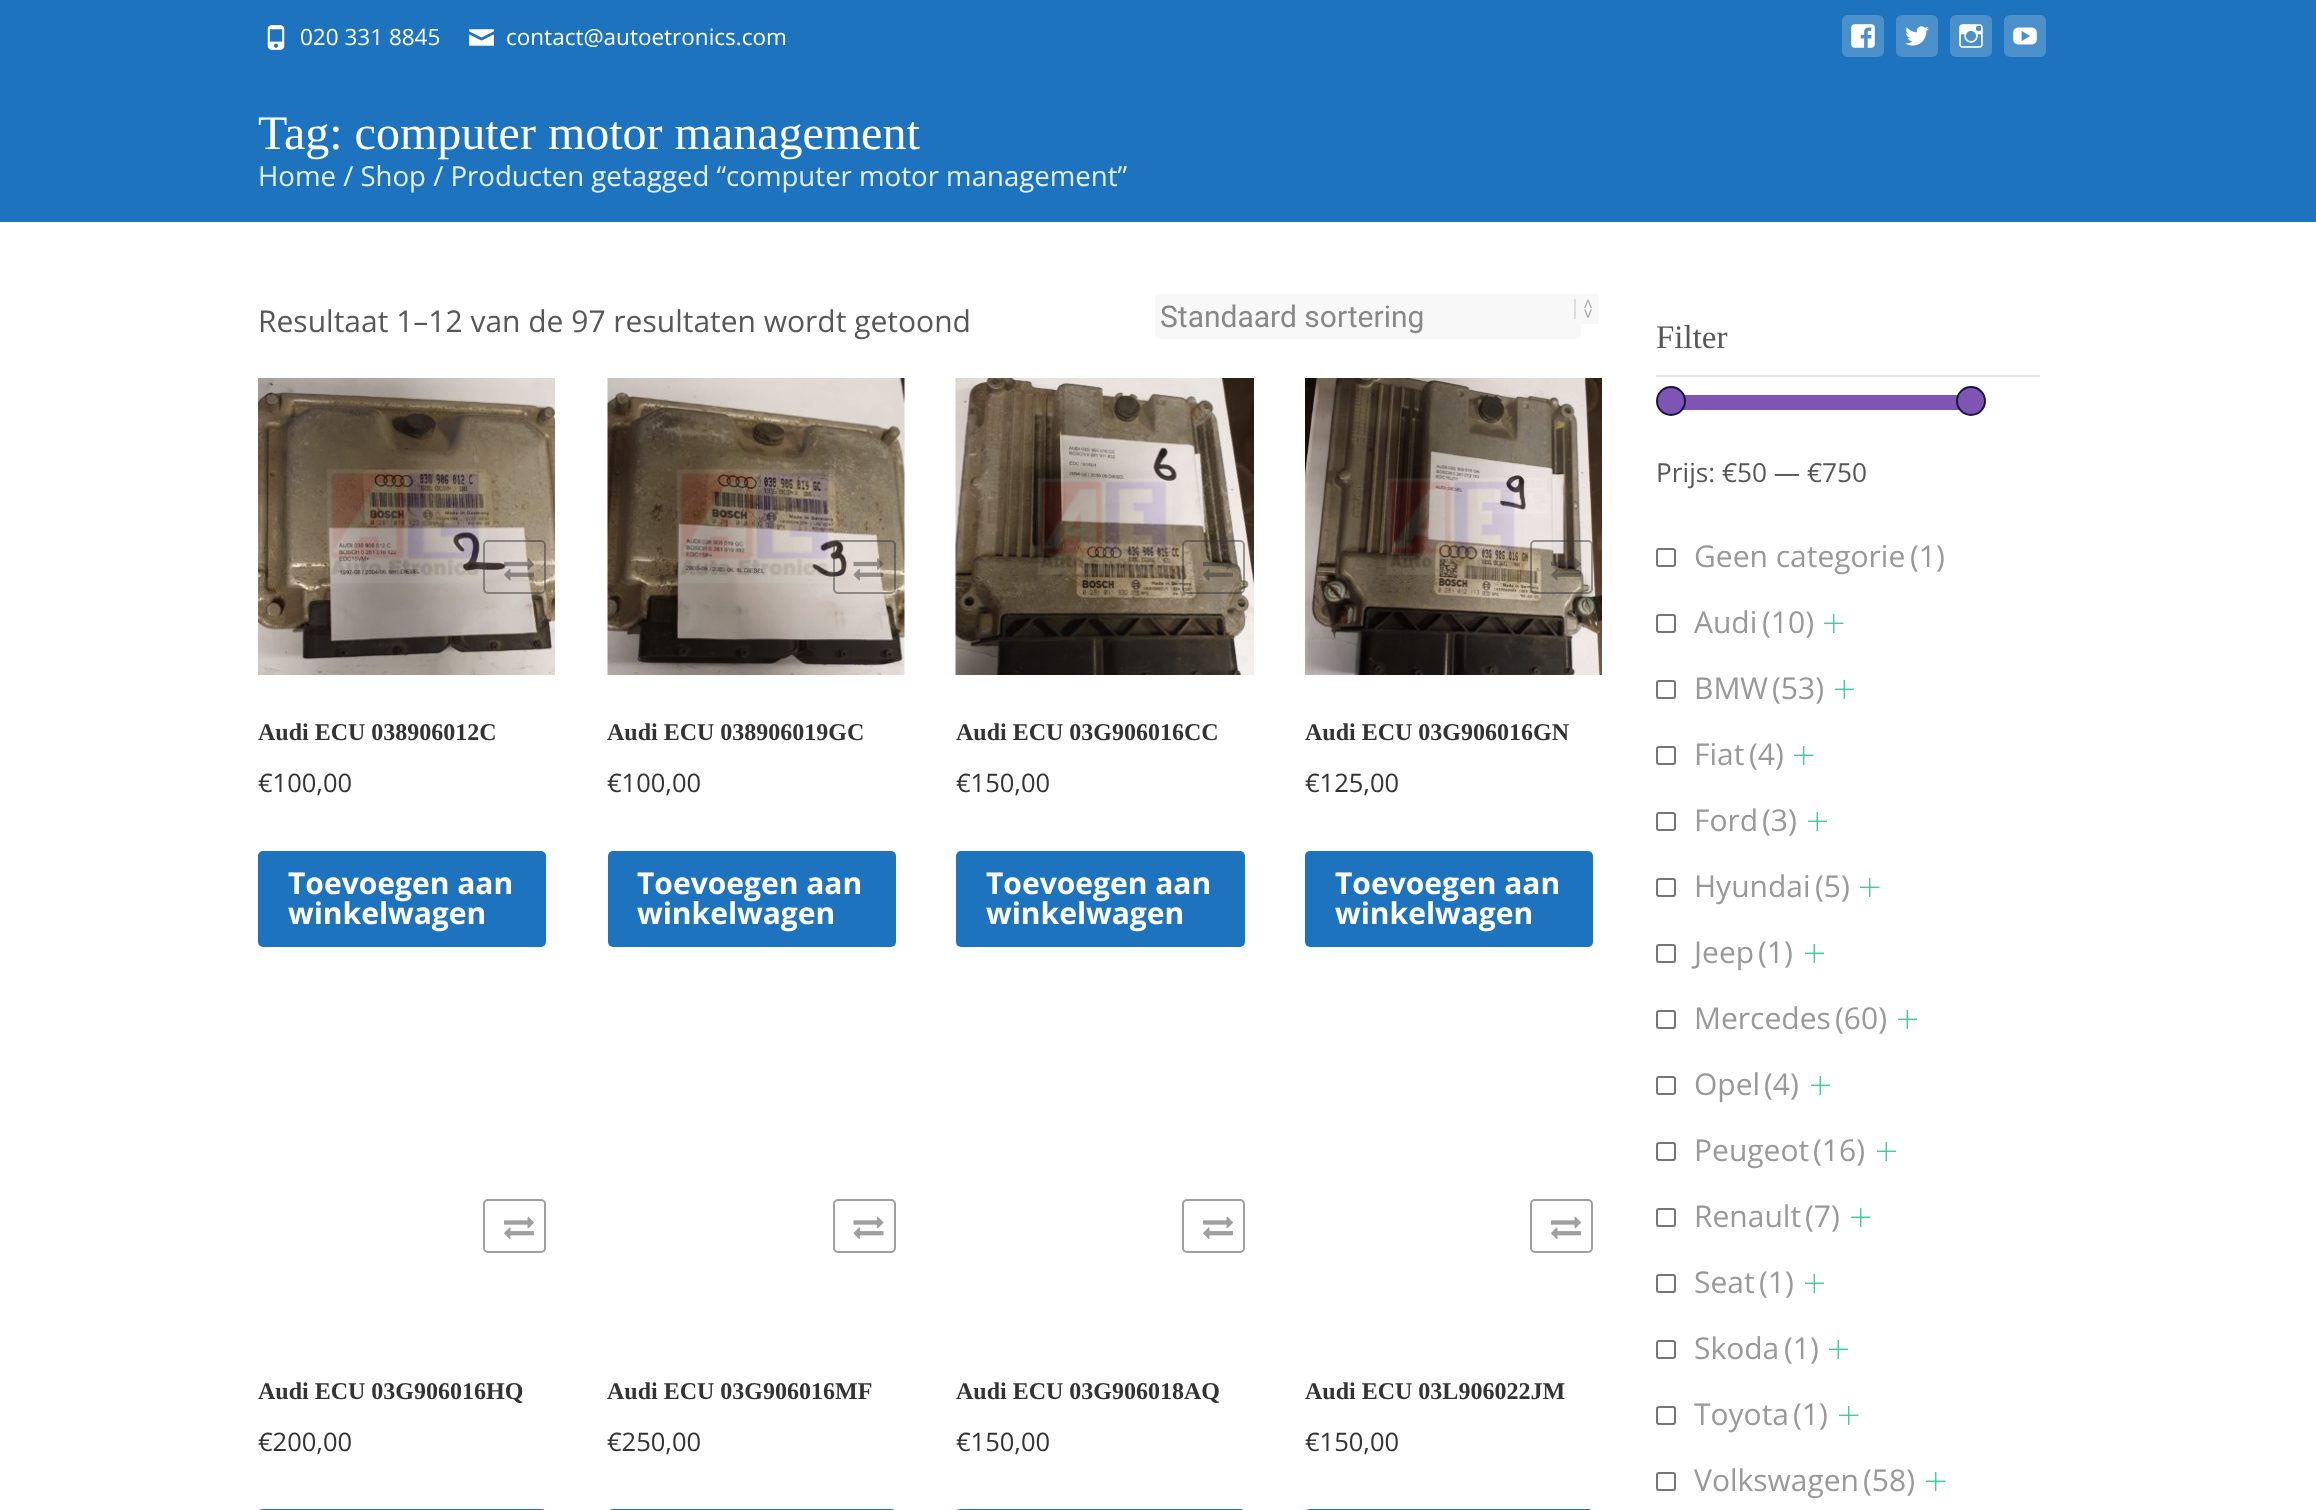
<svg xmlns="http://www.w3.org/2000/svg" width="2316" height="1510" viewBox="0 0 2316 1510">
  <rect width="100%" height="100%" fill="#ffffff"/>
  <rect x="0" y="0" width="2316" height="222" fill="#1e73be"/>
  <image x="267" y="25" width="18" height="25" href="img1.png"/>
  <text x="300" y="45" font-family="Open Sans" font-size="22.5" fill="#ffffff">020 331 8845</text>
  <image x="469" y="29" width="25" height="17" href="img2.png"/>
  <text x="506" y="45" font-family="Open Sans" font-size="22.5" fill="#ffffff">contact@autoetronics.com</text>
  <rect x="1842" y="15" width="42" height="42" rx="6" fill="#4b8fcb"/>
  <image x="1851" y="24" width="24" height="24" href="img3.png"/>
  <rect x="1896" y="15" width="42" height="42" rx="6" fill="#4b8fcb"/>
  <image x="1905" y="26" width="24" height="20" href="img4.png"/>
  <rect x="1950" y="15" width="42" height="42" rx="6" fill="#4b8fcb"/>
  <image x="1959" y="24" width="24" height="24" href="img5.png"/>
  <rect x="2004" y="15" width="42" height="42" rx="6" fill="#4b8fcb"/>
  <image x="2013" y="27" width="24" height="18" href="img6.png"/>
  <text x="258" y="149" font-family="Liberation Serif" font-size="48" fill="#ffffff">Tag: computer motor management</text>
  <text x="258" y="186" font-family="Open Sans" font-size="27.6" fill="#e4eef7">Home / Shop / Producten getagged “computer motor management”</text>
  <text x="258" y="332" font-family="Open Sans" font-size="30" fill="#575757">Resultaat 1–12 van de 97 resultaten wordt getoond</text>
  <rect x="1155" y="294" width="426" height="45" rx="5" fill="#f8f8f8"/>
  <rect x="1578" y="294" width="21" height="30" fill="#f8f8f8"/>
  <text x="1160" y="327" font-family="Roboto" font-size="30" fill="#888888">Standaard sortering</text>
  <rect x="1574" y="299" width="2" height="20" fill="#dddddd"/>
  <text x="1583" y="299" transform="rotate(90 1583 299)" font-family="DejaVu Sans Mono" font-size="16" fill="#aaaaaa">&lt;&gt;</text>
  <image x="258" y="378" width="297" height="297" href="img8.png"/>
  <rect x="484" y="541" width="61" height="52" rx="4" fill="none" stroke="#373737" stroke-opacity="0.48" stroke-width="2"/>
  <image x="504" y="558" width="30" height="23" href="img7.png"/>
  <text x="258" y="740" font-family="Liberation Serif" font-size="24" font-weight="bold" fill="#333333">Audi ECU 038906012C</text>
  <text x="258" y="792" font-family="Open Sans" font-size="25.5" fill="#333333">€100,00</text>
  <rect x="258" y="851" width="288" height="96" rx="5" fill="#1e73be"/>
  <text x="288" y="894" font-family="Open Sans" font-size="30" font-weight="bold" fill="#ffffff">Toevoegen aan</text>
  <text x="288" y="924" font-family="Open Sans" font-size="30" font-weight="bold" fill="#ffffff">winkelwagen</text>
  <image x="607" y="378" width="298" height="297" href="img10.png"/>
  <rect x="834" y="541" width="61" height="52" rx="4" fill="none" stroke="#373737" stroke-opacity="0.48" stroke-width="2"/>
  <image x="853" y="558" width="31" height="23" href="img9.png"/>
  <text x="607" y="740" font-family="Liberation Serif" font-size="24" font-weight="bold" fill="#333333">Audi ECU 038906019GC</text>
  <text x="607" y="792" font-family="Open Sans" font-size="25.5" fill="#333333">€100,00</text>
  <rect x="608" y="851" width="288" height="96" rx="5" fill="#1e73be"/>
  <text x="637" y="894" font-family="Open Sans" font-size="30" font-weight="bold" fill="#ffffff">Toevoegen aan</text>
  <text x="637" y="924" font-family="Open Sans" font-size="30" font-weight="bold" fill="#ffffff">winkelwagen</text>
  <image x="955" y="378" width="299" height="297" href="img12.png"/>
  <rect x="1183" y="541" width="61" height="52" rx="4" fill="none" stroke="#373737" stroke-opacity="0.48" stroke-width="2"/>
  <image x="1203" y="559" width="30" height="22" href="img11.png"/>
  <text x="956" y="740" font-family="Liberation Serif" font-size="24" font-weight="bold" fill="#333333">Audi ECU 03G906016CC</text>
  <text x="956" y="792" font-family="Open Sans" font-size="25.5" fill="#333333">€150,00</text>
  <rect x="956" y="851" width="289" height="96" rx="5" fill="#1e73be"/>
  <text x="986" y="894" font-family="Open Sans" font-size="30" font-weight="bold" fill="#ffffff">Toevoegen aan</text>
  <text x="986" y="924" font-family="Open Sans" font-size="30" font-weight="bold" fill="#ffffff">winkelwagen</text>
  <image x="1305" y="378" width="297" height="297" href="img14.png"/>
  <rect x="1531" y="541" width="61" height="52" rx="4" fill="none" stroke="#373737" stroke-opacity="0.48" stroke-width="2"/>
  <image x="1551" y="558" width="30" height="23" href="img13.png"/>
  <text x="1305" y="740" font-family="Liberation Serif" font-size="24" font-weight="bold" fill="#333333">Audi ECU 03G906016GN</text>
  <text x="1305" y="792" font-family="Open Sans" font-size="25.5" fill="#333333">€125,00</text>
  <rect x="1305" y="851" width="288" height="96" rx="5" fill="#1e73be"/>
  <text x="1335" y="894" font-family="Open Sans" font-size="30" font-weight="bold" fill="#ffffff">Toevoegen aan</text>
  <text x="1335" y="924" font-family="Open Sans" font-size="30" font-weight="bold" fill="#ffffff">winkelwagen</text>
  <rect x="484" y="1200" width="61" height="52" rx="4" fill="none" stroke="#9f9f9f" stroke-width="2"/>
  <image x="504" y="1216" width="30" height="23" href="img15.png"/>
  <text x="258" y="1399" font-family="Liberation Serif" font-size="24" font-weight="bold" fill="#333333">Audi ECU 03G906016HQ</text>
  <text x="258" y="1451" font-family="Open Sans" font-size="25.5" fill="#333333">€200,00</text>
  <rect x="258" y="1509" width="288" height="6" rx="5" fill="#1e73be"/>
  <rect x="834" y="1200" width="61" height="52" rx="4" fill="none" stroke="#9f9f9f" stroke-width="2"/>
  <image x="853" y="1216" width="31" height="23" href="img16.png"/>
  <text x="607" y="1399" font-family="Liberation Serif" font-size="24" font-weight="bold" fill="#333333">Audi ECU 03G906016MF</text>
  <text x="607" y="1451" font-family="Open Sans" font-size="25.5" fill="#333333">€250,00</text>
  <rect x="608" y="1509" width="288" height="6" rx="5" fill="#1e73be"/>
  <rect x="1183" y="1200" width="61" height="52" rx="4" fill="none" stroke="#9f9f9f" stroke-width="2"/>
  <image x="1203" y="1216" width="30" height="23" href="img15.png"/>
  <text x="956" y="1399" font-family="Liberation Serif" font-size="24" font-weight="bold" fill="#333333">Audi ECU 03G906018AQ</text>
  <text x="956" y="1451" font-family="Open Sans" font-size="25.5" fill="#333333">€150,00</text>
  <rect x="956" y="1509" width="289" height="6" rx="5" fill="#1e73be"/>
  <rect x="1531" y="1200" width="61" height="52" rx="4" fill="none" stroke="#9f9f9f" stroke-width="2"/>
  <image x="1551" y="1216" width="30" height="23" href="img15.png"/>
  <text x="1305" y="1399" font-family="Liberation Serif" font-size="24" font-weight="bold" fill="#333333">Audi ECU 03L906022JM</text>
  <text x="1305" y="1451" font-family="Open Sans" font-size="25.5" fill="#333333">€150,00</text>
  <rect x="1305" y="1509" width="288" height="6" rx="5" fill="#1e73be"/>
  <rect x="1656" y="375" width="384" height="2" fill="#e7e7e7"/>
  <text x="1656" y="348" font-family="Liberation Serif" font-size="33" fill="#575757">Filter</text>
  <rect x="1683" y="395" width="276" height="15" fill="#7f54b3"/>
  <circle cx="1671" cy="401" r="14" fill="#7f54b3" stroke="#141741" stroke-width="2"/>
  <circle cx="1971" cy="401" r="14" fill="#7f54b3" stroke="#141741" stroke-width="2"/>
  <text x="1656" y="482" font-family="Open Sans" font-size="26.25" fill="#575757">Prijs: €50 — €750</text>
  <rect x="1657" y="549" width="18" height="17" rx="2" fill="none" stroke="#767676" stroke-width="2"/>
  <text x="1694" y="567" font-family="Open Sans" font-size="30" fill="#999999">Geen categorie</text>
  <text x="1910" y="567" font-family="Open Sans" font-size="30" fill="#999999">(1)</text>
  <rect x="1657" y="615" width="18" height="17" rx="2" fill="none" stroke="#767676" stroke-width="2"/>
  <text x="1694" y="633" font-family="Open Sans" font-size="30" fill="#999999">Audi</text>
  <text x="1762" y="633" font-family="Open Sans" font-size="30" fill="#999999">(10)</text>
  <image x="1824" y="614" width="20" height="19" href="img17.png"/>
  <rect x="1657" y="681" width="18" height="17" rx="2" fill="none" stroke="#767676" stroke-width="2"/>
  <text x="1694" y="699" font-family="Open Sans" font-size="30" fill="#999999">BMW</text>
  <text x="1772" y="699" font-family="Open Sans" font-size="30" fill="#999999">(53)</text>
  <image x="1835" y="680" width="19" height="19" href="img18.png"/>
  <rect x="1657" y="747" width="18" height="17" rx="2" fill="none" stroke="#767676" stroke-width="2"/>
  <text x="1694" y="765" font-family="Open Sans" font-size="30" fill="#999999">Fiat</text>
  <text x="1749" y="765" font-family="Open Sans" font-size="30" fill="#999999">(4)</text>
  <image x="1794" y="746" width="20" height="19" href="img17.png"/>
  <rect x="1657" y="813" width="18" height="17" rx="2" fill="none" stroke="#767676" stroke-width="2"/>
  <text x="1694" y="831" font-family="Open Sans" font-size="30" fill="#999999">Ford</text>
  <text x="1762" y="831" font-family="Open Sans" font-size="30" fill="#999999">(3)</text>
  <image x="1808" y="812" width="19" height="19" href="img18.png"/>
  <rect x="1657" y="879" width="18" height="17" rx="2" fill="none" stroke="#767676" stroke-width="2"/>
  <text x="1694" y="897" font-family="Open Sans" font-size="30" fill="#999999">Hyundai</text>
  <text x="1815" y="897" font-family="Open Sans" font-size="30" fill="#999999">(5)</text>
  <image x="1860" y="878" width="20" height="19" href="img17.png"/>
  <rect x="1657" y="945" width="18" height="17" rx="2" fill="none" stroke="#767676" stroke-width="2"/>
  <text x="1694" y="963" font-family="Open Sans" font-size="30" fill="#999999">Jeep</text>
  <text x="1758" y="963" font-family="Open Sans" font-size="30" fill="#999999">(1)</text>
  <image x="1805" y="944" width="19" height="19" href="img18.png"/>
  <rect x="1657" y="1011" width="18" height="17" rx="2" fill="none" stroke="#767676" stroke-width="2"/>
  <text x="1694" y="1029" font-family="Open Sans" font-size="30" fill="#999999">Mercedes</text>
  <text x="1835" y="1029" font-family="Open Sans" font-size="30" fill="#999999">(60)</text>
  <image x="1898" y="1010" width="19" height="19" href="img18.png"/>
  <rect x="1657" y="1077" width="18" height="17" rx="2" fill="none" stroke="#767676" stroke-width="2"/>
  <text x="1694" y="1095" font-family="Open Sans" font-size="30" fill="#999999">Opel</text>
  <text x="1764" y="1095" font-family="Open Sans" font-size="30" fill="#999999">(4)</text>
  <image x="1811" y="1076" width="19" height="19" href="img18.png"/>
  <rect x="1657" y="1143" width="18" height="17" rx="2" fill="none" stroke="#767676" stroke-width="2"/>
  <text x="1694" y="1161" font-family="Open Sans" font-size="30" fill="#999999">Peugeot</text>
  <text x="1813" y="1161" font-family="Open Sans" font-size="30" fill="#999999">(16)</text>
  <image x="1877" y="1142" width="19" height="19" href="img18.png"/>
  <rect x="1657" y="1209" width="18" height="17" rx="2" fill="none" stroke="#767676" stroke-width="2"/>
  <text x="1694" y="1227" font-family="Open Sans" font-size="30" fill="#999999">Renault</text>
  <text x="1805" y="1227" font-family="Open Sans" font-size="30" fill="#999999">(7)</text>
  <image x="1851" y="1208" width="20" height="19" href="img17.png"/>
  <rect x="1657" y="1275" width="18" height="17" rx="2" fill="none" stroke="#767676" stroke-width="2"/>
  <text x="1694" y="1293" font-family="Open Sans" font-size="30" fill="#999999">Seat</text>
  <text x="1759" y="1293" font-family="Open Sans" font-size="30" fill="#999999">(1)</text>
  <image x="1805" y="1274" width="19" height="19" href="img18.png"/>
  <rect x="1657" y="1341" width="18" height="17" rx="2" fill="none" stroke="#767676" stroke-width="2"/>
  <text x="1694" y="1359" font-family="Open Sans" font-size="30" fill="#999999">Skoda</text>
  <text x="1784" y="1359" font-family="Open Sans" font-size="30" fill="#999999">(1)</text>
  <image x="1829" y="1340" width="19" height="19" href="img18.png"/>
  <rect x="1657" y="1407" width="18" height="17" rx="2" fill="none" stroke="#767676" stroke-width="2"/>
  <text x="1694" y="1425" font-family="Open Sans" font-size="30" fill="#999999">Toyota</text>
  <text x="1793" y="1425" font-family="Open Sans" font-size="30" fill="#999999">(1)</text>
  <image x="1839" y="1406" width="20" height="19" href="img17.png"/>
  <rect x="1657" y="1473" width="18" height="17" rx="2" fill="none" stroke="#767676" stroke-width="2"/>
  <text x="1694" y="1491" font-family="Open Sans" font-size="30" fill="#999999">Volkswagen</text>
  <text x="1863" y="1491" font-family="Open Sans" font-size="30" fill="#999999">(58)</text>
  <image x="1926" y="1472" width="20" height="19" href="img17.png"/>
</svg>
